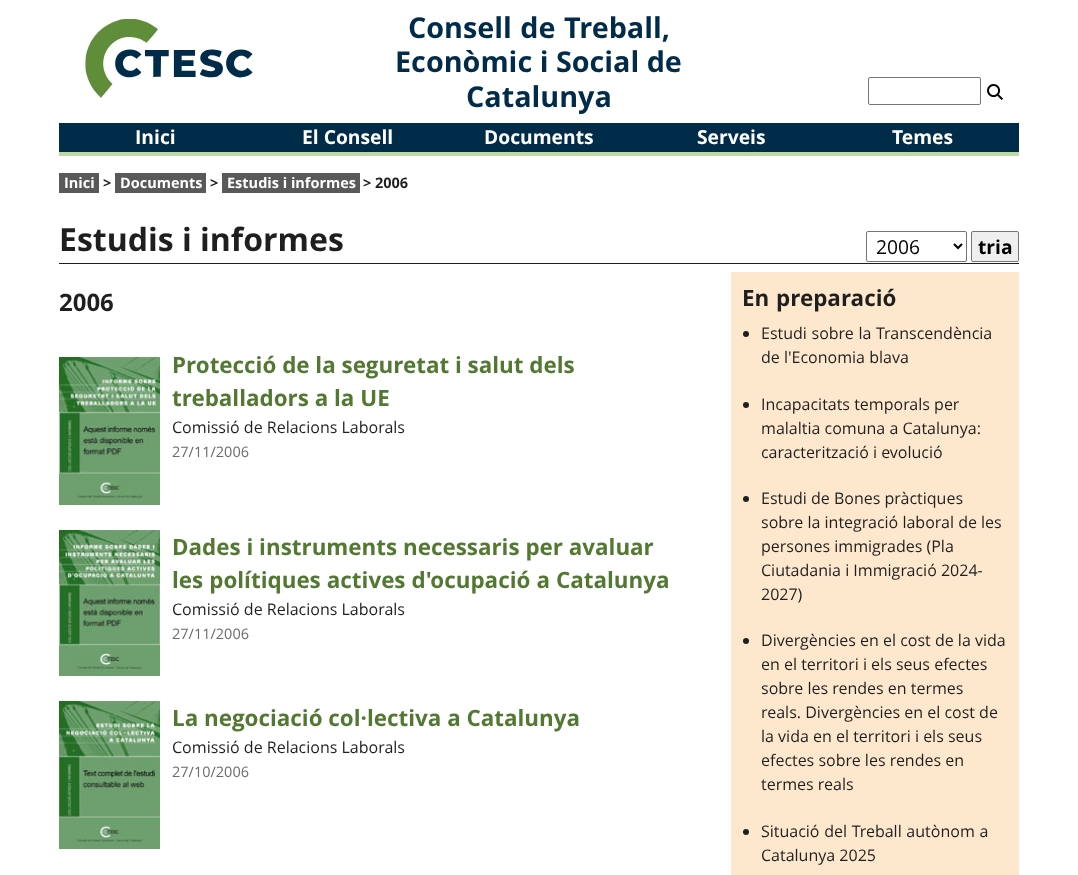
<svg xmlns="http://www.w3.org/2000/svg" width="1078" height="875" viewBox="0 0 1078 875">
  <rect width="100%" height="100%" fill="#ffffff"/>
  <image x="85" y="19" width="168" height="79" href="img1.png"/>
  <text x="408" y="38" word-spacing="1" font-family="Open Sans" font-size="28.75" font-weight="bold" fill="#002c4a">Consell de Treball,</text>
  <text x="395" y="72" font-family="Open Sans" font-size="28.75" font-weight="bold" fill="#002c4a">Econòmic i Social de</text>
  <text x="466" y="107" font-family="Open Sans" font-size="28.75" font-weight="bold" fill="#002c4a">Catalunya</text>
  <rect x="868.5" y="77.5" width="112" height="27" rx="1.5" fill="none" stroke="#767676"/>
  <image x="987" y="84" width="16" height="16" href="img2.png"/>
  <rect x="59" y="123" width="960" height="29" fill="#002c4a"/>
  <rect x="59" y="152" width="960" height="4" fill="#bddaa5"/>
  <text x="135" y="144" font-family="Open Sans" font-size="19.25" font-weight="bold" fill="#ffffff">Inici</text>
  <text x="302" y="144" font-family="Open Sans" font-size="19.25" font-weight="bold" fill="#ffffff">El Consell</text>
  <text x="484" y="144" font-family="Open Sans" font-size="19.25" font-weight="bold" fill="#ffffff">Documents</text>
  <text x="697" y="144" font-family="Open Sans" font-size="19.25" font-weight="bold" fill="#ffffff">Serveis</text>
  <text x="892" y="144" font-family="Open Sans" font-size="19.25" font-weight="bold" fill="#ffffff">Temes</text>
  <rect x="59" y="173" width="40" height="20" fill="#595959"/>
  <text x="64" y="188" font-family="Open Sans" font-size="14.5" font-weight="bold" fill="#ffffff">Inici</text>
  <text x="103" y="188" font-family="Open Sans" font-size="14.5" font-weight="bold" fill="#1f1f1f">&gt;</text>
  <rect x="115" y="173" width="91" height="20" fill="#595959"/>
  <text x="120" y="188" font-family="Open Sans" font-size="14.5" font-weight="bold" fill="#ffffff">Documents</text>
  <text x="210" y="188" font-family="Open Sans" font-size="14.5" font-weight="bold" fill="#1f1f1f">&gt;</text>
  <rect x="222" y="173" width="138" height="20" fill="#595959"/>
  <text x="227" y="188" font-family="Open Sans" font-size="14.5" font-weight="bold" fill="#ffffff">Estudis i informes</text>
  <text x="363" y="188" font-family="Open Sans" font-size="14.5" font-weight="bold" fill="#1f1f1f">&gt; 2006</text>
  <rect x="59" y="263" width="960" height="1" fill="#1f1f1f"/>
  <text x="59" y="251" font-family="Open Sans" font-size="32" font-weight="bold" fill="#1f1f1f">Estudis i informes</text>
  <rect x="866.5" y="231.5" width="100" height="30" rx="1.5" fill="none" stroke="#767676"/>
  <path d="M954 244L958 248L962 244" fill="none" stroke="#000000" stroke-width="2"/>
  <text x="876" y="254" font-family="Open Sans" font-size="19.25" fill="#000000">2006</text>
  <rect x="971.5" y="231.5" width="47" height="30" rx="1.5" fill="#efefef" stroke="#767676"/>
  <text x="978" y="254" font-family="Open Sans" font-size="19.25" font-weight="bold" fill="#000000">tria</text>
  <text x="59" y="311" font-family="Open Sans" font-size="24" font-weight="bold" fill="#1f1f1f">2006</text>
  <image x="59" y="357" width="101" height="148" href="img3.png"/>
  <text x="172" y="373" font-family="Open Sans" font-size="22.4" font-weight="bold" fill="#527832">Protecció de la seguretat i salut dels</text>
  <text x="172" y="406" font-family="Open Sans" font-size="22.4" font-weight="bold" fill="#527832">treballadors a la UE</text>
  <text x="172" y="433" font-family="Open Sans" font-size="16" fill="#1f1f1f">Comissió de Relacions Laborals</text>
  <text x="172" y="457" font-family="Open Sans" font-size="14.5" fill="#6a6a6a">27/11/2006</text>
  <image x="59" y="530" width="101" height="146" href="img4.png"/>
  <text x="172" y="555" font-family="Open Sans" font-size="22.4" font-weight="bold" fill="#527832">Dades i instruments necessaris per avaluar</text>
  <text x="172" y="588" word-spacing="0.25" font-family="Open Sans" font-size="22.4" font-weight="bold" fill="#527832">les polítiques actives d'ocupació a Catalunya</text>
  <text x="172" y="615" font-family="Open Sans" font-size="16" fill="#1f1f1f">Comissió de Relacions Laborals</text>
  <text x="172" y="639" font-family="Open Sans" font-size="14.5" fill="#6a6a6a">27/11/2006</text>
  <image x="59" y="701" width="101" height="148" href="img5.png"/>
  <text x="172" y="726" font-family="Open Sans" font-size="22.4" font-weight="bold" fill="#527832">La negociació col·lectiva a Catalunya</text>
  <text x="172" y="753" font-family="Open Sans" font-size="16" fill="#1f1f1f">Comissió de Relacions Laborals</text>
  <text x="172" y="777" font-family="Open Sans" font-size="14.5" fill="#6a6a6a">27/10/2006</text>
  <rect x="731" y="272" width="288" height="603" fill="#fee8cd"/>
  <text x="742" y="306" word-spacing="1" font-family="Open Sans" font-size="22.4" font-weight="bold" fill="#1f1f1f">En preparació</text>
  <circle cx="746" cy="334" r="3" fill="#1f1f1f"/>
  <text x="761" y="339" word-spacing="0.5" font-family="Open Sans" font-size="16" fill="#1f1f1f">Estudi sobre la Transcendència</text>
  <text x="761" y="363" font-family="Open Sans" font-size="16" fill="#1f1f1f">de l'Economia blava</text>
  <circle cx="746" cy="405" r="3" fill="#1f1f1f"/>
  <text x="761" y="410" font-family="Open Sans" font-size="16" fill="#1f1f1f">Incapacitats temporals per</text>
  <text x="761" y="434" font-family="Open Sans" font-size="16" fill="#1f1f1f">malaltia comuna a Catalunya:</text>
  <text x="761" y="458" font-family="Open Sans" font-size="16" fill="#1f1f1f">caracterització i evolució</text>
  <circle cx="746" cy="499" r="3" fill="#1f1f1f"/>
  <text x="761" y="504" font-family="Open Sans" font-size="16" fill="#1f1f1f">Estudi de Bones pràctiques</text>
  <text x="761" y="528" font-family="Open Sans" font-size="16" fill="#1f1f1f">sobre la integració laboral de les</text>
  <text x="761" y="552" font-family="Open Sans" font-size="16" fill="#1f1f1f">persones immigrades (Pla</text>
  <text x="761" y="576" font-family="Open Sans" font-size="16" fill="#1f1f1f">Ciutadania i Immigració 2024-</text>
  <text x="761" y="600" font-family="Open Sans" font-size="16" fill="#1f1f1f">2027)</text>
  <circle cx="746" cy="641" r="3" fill="#1f1f1f"/>
  <text x="761" y="646" font-family="Open Sans" font-size="16" fill="#1f1f1f">Divergències en el cost de la vida</text>
  <text x="761" y="670" font-family="Open Sans" font-size="16" fill="#1f1f1f">en el territori i els seus efectes</text>
  <text x="761" y="694" font-family="Open Sans" font-size="16" fill="#1f1f1f">sobre les rendes en termes</text>
  <text x="761" y="718" font-family="Open Sans" font-size="16" fill="#1f1f1f">reals. Divergències en el cost de</text>
  <text x="761" y="742" font-family="Open Sans" font-size="16" fill="#1f1f1f">la vida en el territori i els seus</text>
  <text x="761" y="766" font-family="Open Sans" font-size="16" fill="#1f1f1f">efectes sobre les rendes en</text>
  <text x="761" y="790" font-family="Open Sans" font-size="16" fill="#1f1f1f">termes reals</text>
  <circle cx="746" cy="832" r="3" fill="#1f1f1f"/>
  <text x="761" y="837" word-spacing="0.5" font-family="Open Sans" font-size="16" fill="#1f1f1f">Situació del Treball autònom a</text>
  <text x="761" y="861" font-family="Open Sans" font-size="16" fill="#1f1f1f">Catalunya 2025</text>
</svg>
